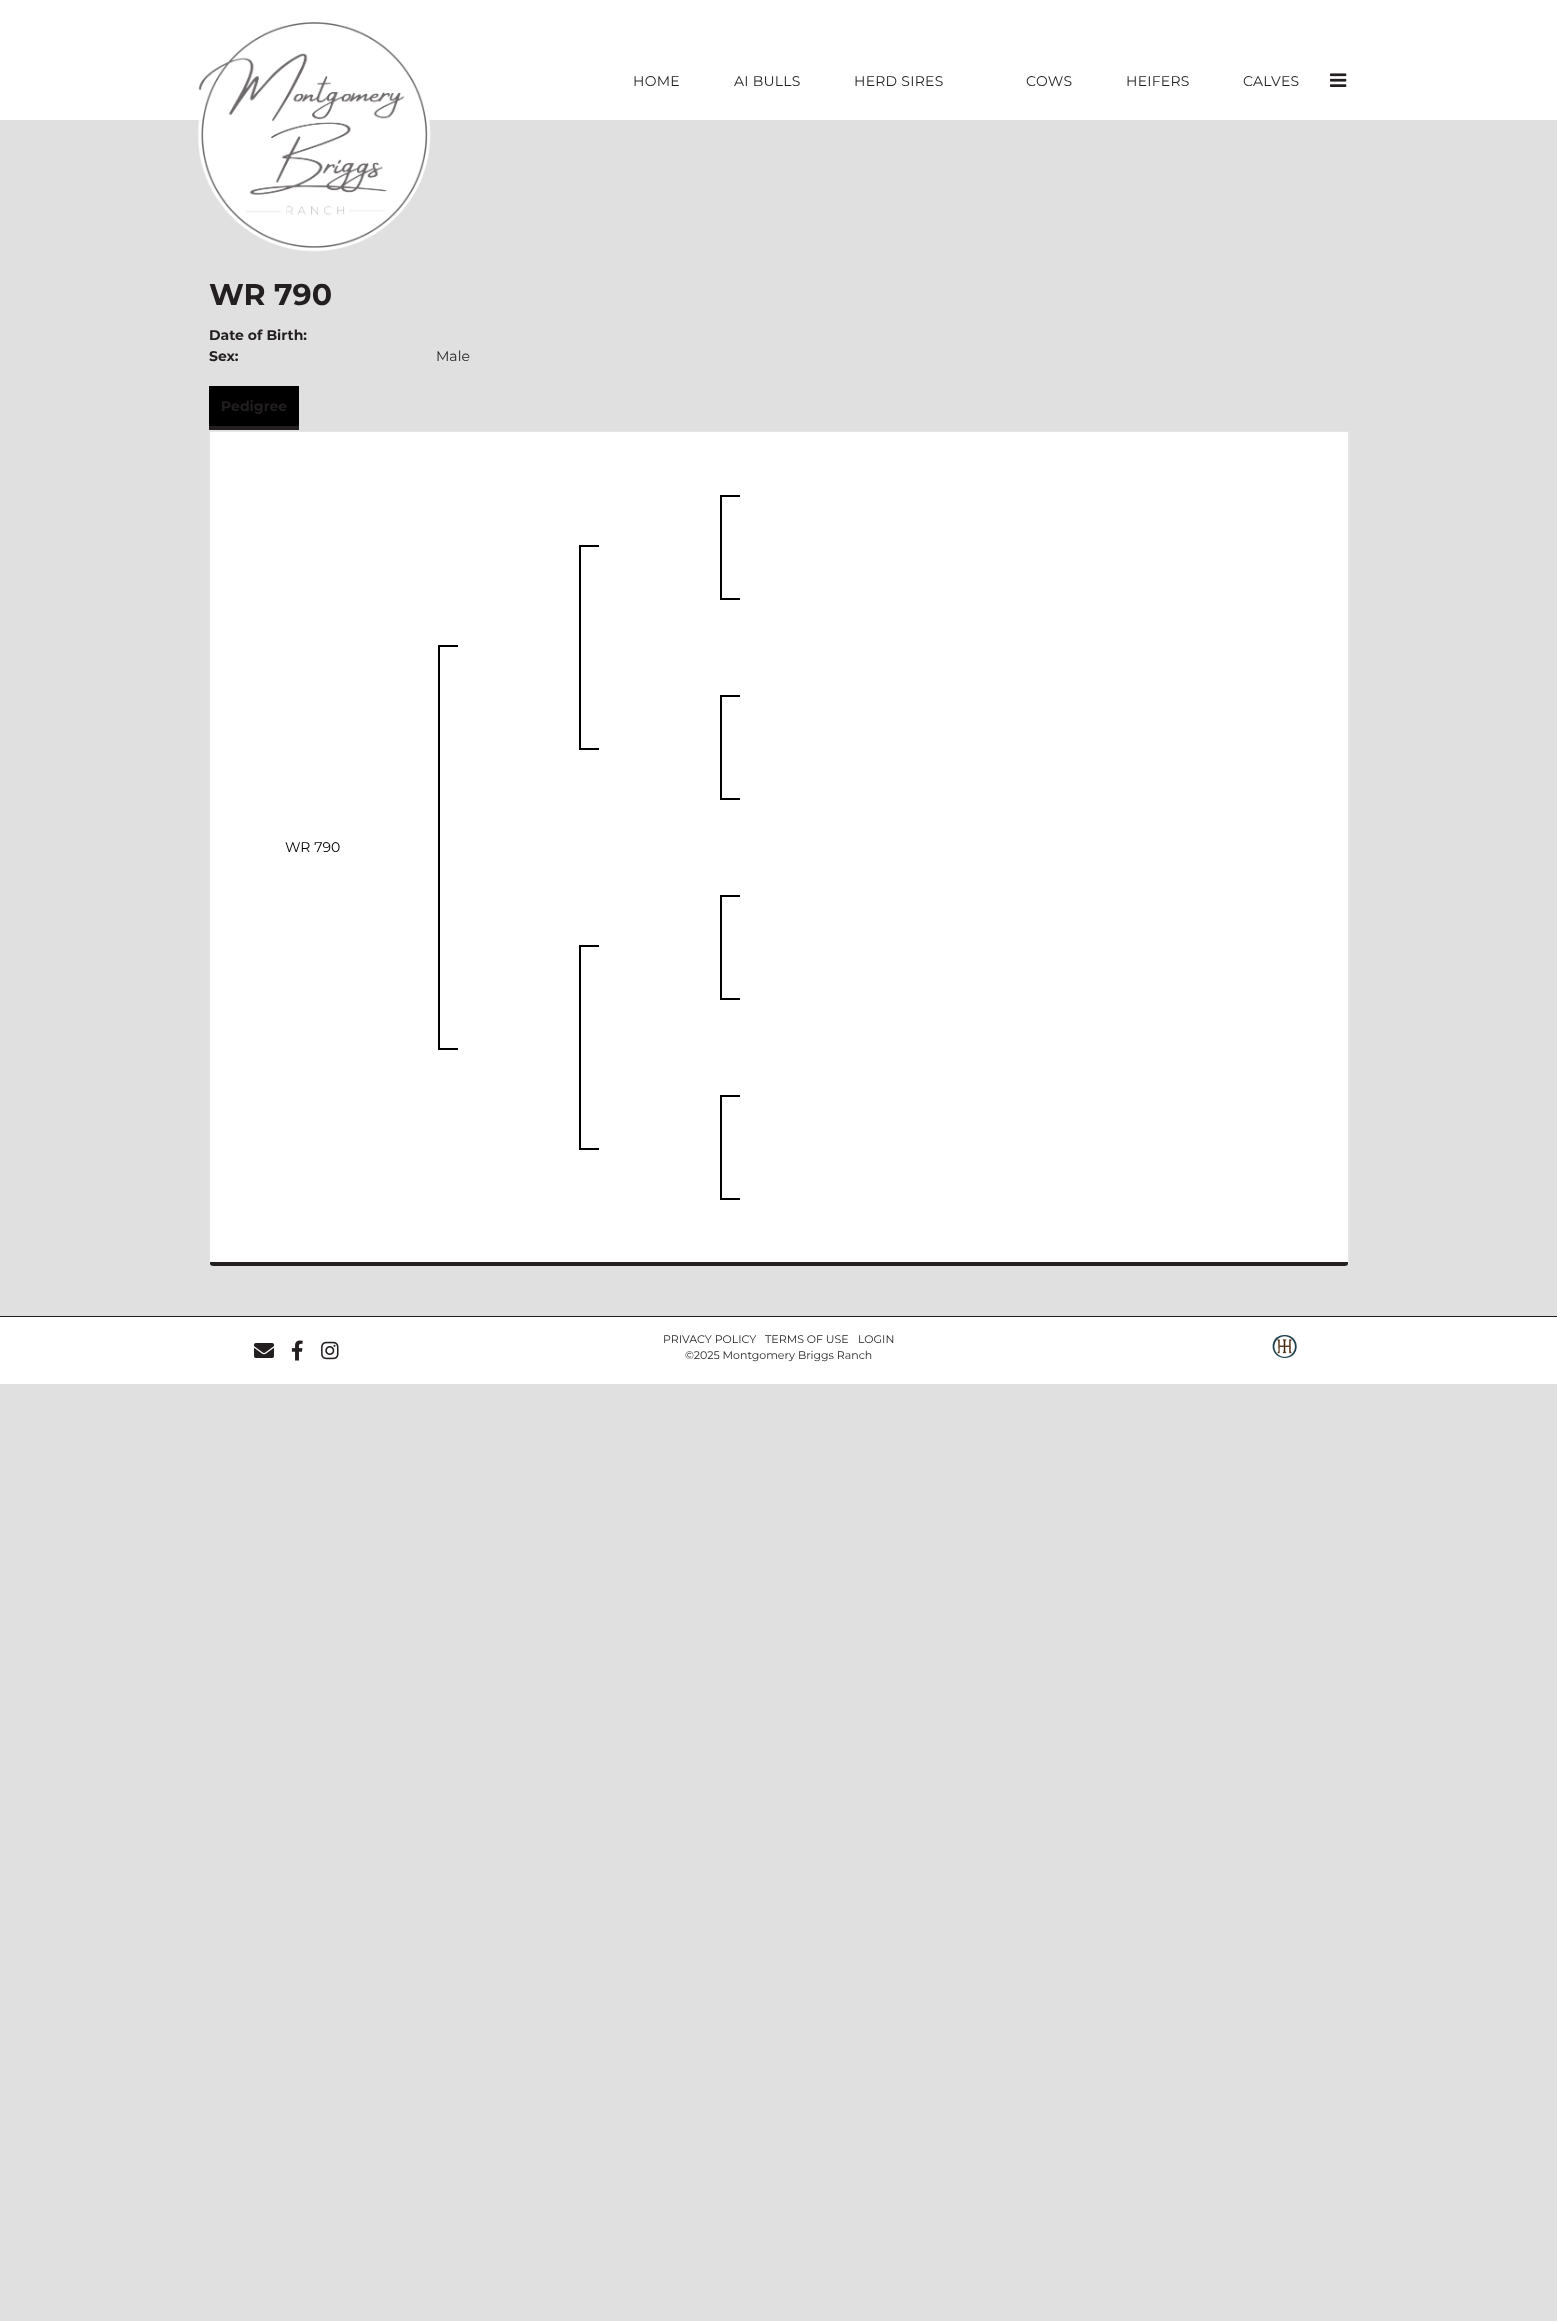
<svg xmlns="http://www.w3.org/2000/svg" width="1557" height="2321" viewBox="0 0 1557 2321">
  <rect width="100%" height="100%" fill="#e0e0e0"/>
  <rect x="0" y="0" width="1557" height="120" fill="#ffffff"/>
  <image x="198" y="22" width="233" height="230" href="img1.png"/>
  <text x="633" y="86" font-family="Montserrat" font-size="14" letter-spacing="0.25" fill="#231f20">HOME</text>
  <text x="734" y="86" font-family="Montserrat" font-size="14" letter-spacing="0.25" fill="#231f20">AI BULLS</text>
  <text x="854" y="86" font-family="Montserrat" font-size="14" letter-spacing="0.25" fill="#231f20">HERD SIRES</text>
  <text x="1026" y="86" font-family="Montserrat" font-size="14" letter-spacing="0.25" fill="#231f20">COWS</text>
  <text x="1126" y="86" font-family="Montserrat" font-size="14" letter-spacing="0.25" fill="#231f20">HEIFERS</text>
  <text x="1243" y="86" font-family="Montserrat" font-size="14" letter-spacing="0.25" fill="#231f20">CALVES</text>
  <image x="1330" y="73" width="17" height="14" href="img2.png"/>
  <text x="209" y="305" font-family="Montserrat" font-size="30" font-weight="bold" fill="#231f20">WR 790</text>
  <text x="209" y="340" font-family="Montserrat" font-size="14" font-weight="bold" fill="#231f20">Date of Birth:</text>
  <text x="209" y="361" font-family="Montserrat" font-size="14" font-weight="bold" fill="#231f20">Sex:</text>
  <text x="436" y="361" font-family="Montserrat" font-size="14" fill="#231f20">Male</text>
  <rect x="209" y="431" width="1140" height="1" fill="#e5e5e5"/>
  <rect x="209" y="426" width="90" height="4" fill="#231f20"/>
  <rect x="209" y="386" width="90" height="40" fill="#000000"/>
  <text x="221" y="411" font-family="Montserrat" font-size="14" font-weight="bold" fill="#231f20">Pedigree</text>
  <path d="M209 432H1349V1262C1349 1264 1347 1266 1345 1266H213C211 1266 209 1264 209 1262Z" fill="#ffffff"/>
  <path d="M1349 432H1348V1262V1264L1349 1262Z" fill="#e5e5e5"/>
  <path d="M213 1266H1345C1346 1266 1348 1265 1348 1264V1262H210V1264C210 1265 212 1266 213 1266Z" fill="#231f20"/>
  <path d="M209 432H210V1262V1264L209 1262Z" fill="#e5e5e5"/>
  <rect x="720" y="695" width="20" height="2" fill="#000000"/>
  <rect x="720" y="798" width="20" height="2" fill="#000000"/>
  <rect x="720" y="695" width="2" height="105" fill="#000000"/>
  <text x="285" y="852" font-family="Montserrat" font-size="14" fill="#000000">WR 790</text>
  <rect x="438" y="645" width="20" height="2" fill="#000000"/>
  <rect x="438" y="1048" width="20" height="2" fill="#000000"/>
  <rect x="438" y="645" width="2" height="405" fill="#000000"/>
  <rect x="579" y="545" width="20" height="2" fill="#000000"/>
  <rect x="579" y="748" width="20" height="2" fill="#000000"/>
  <rect x="579" y="545" width="2" height="205" fill="#000000"/>
  <rect x="720" y="495" width="20" height="2" fill="#000000"/>
  <rect x="720" y="598" width="20" height="2" fill="#000000"/>
  <rect x="720" y="495" width="2" height="105" fill="#000000"/>
  <rect x="579" y="945" width="20" height="2" fill="#000000"/>
  <rect x="579" y="1148" width="20" height="2" fill="#000000"/>
  <rect x="579" y="945" width="2" height="205" fill="#000000"/>
  <rect x="720" y="895" width="20" height="2" fill="#000000"/>
  <rect x="720" y="998" width="20" height="2" fill="#000000"/>
  <rect x="720" y="895" width="2" height="105" fill="#000000"/>
  <rect x="720" y="1095" width="20" height="2" fill="#000000"/>
  <rect x="720" y="1198" width="20" height="2" fill="#000000"/>
  <rect x="720" y="1095" width="2" height="105" fill="#000000"/>
  <rect x="0" y="1317" width="1557" height="67" fill="#ffffff"/>
  <rect x="0" y="1316" width="1557" height="1" fill="#231f20"/>
  <image x="254" y="1343" width="20" height="15" href="img3.png"/>
  <image x="291" y="1340" width="12" height="21" href="img4.png"/>
  <image x="321" y="1341" width="18" height="19" href="img5.png"/>
  <text x="663" y="1343" font-family="Montserrat" font-size="11" fill="#231f20">PRIVACY POLICY</text>
  <text x="765" y="1343" font-family="Montserrat" font-size="11" fill="#231f20">TERMS OF USE</text>
  <text x="858" y="1343" font-family="Montserrat" font-size="11" fill="#231f20">LOGIN</text>
  <text x="685" y="1359" font-family="Montserrat" font-size="11" fill="#231f20">©2025 Montgomery Briggs Ranch</text>
  <image x="1272" y="1335" width="25" height="23" href="img6.png"/>
</svg>
